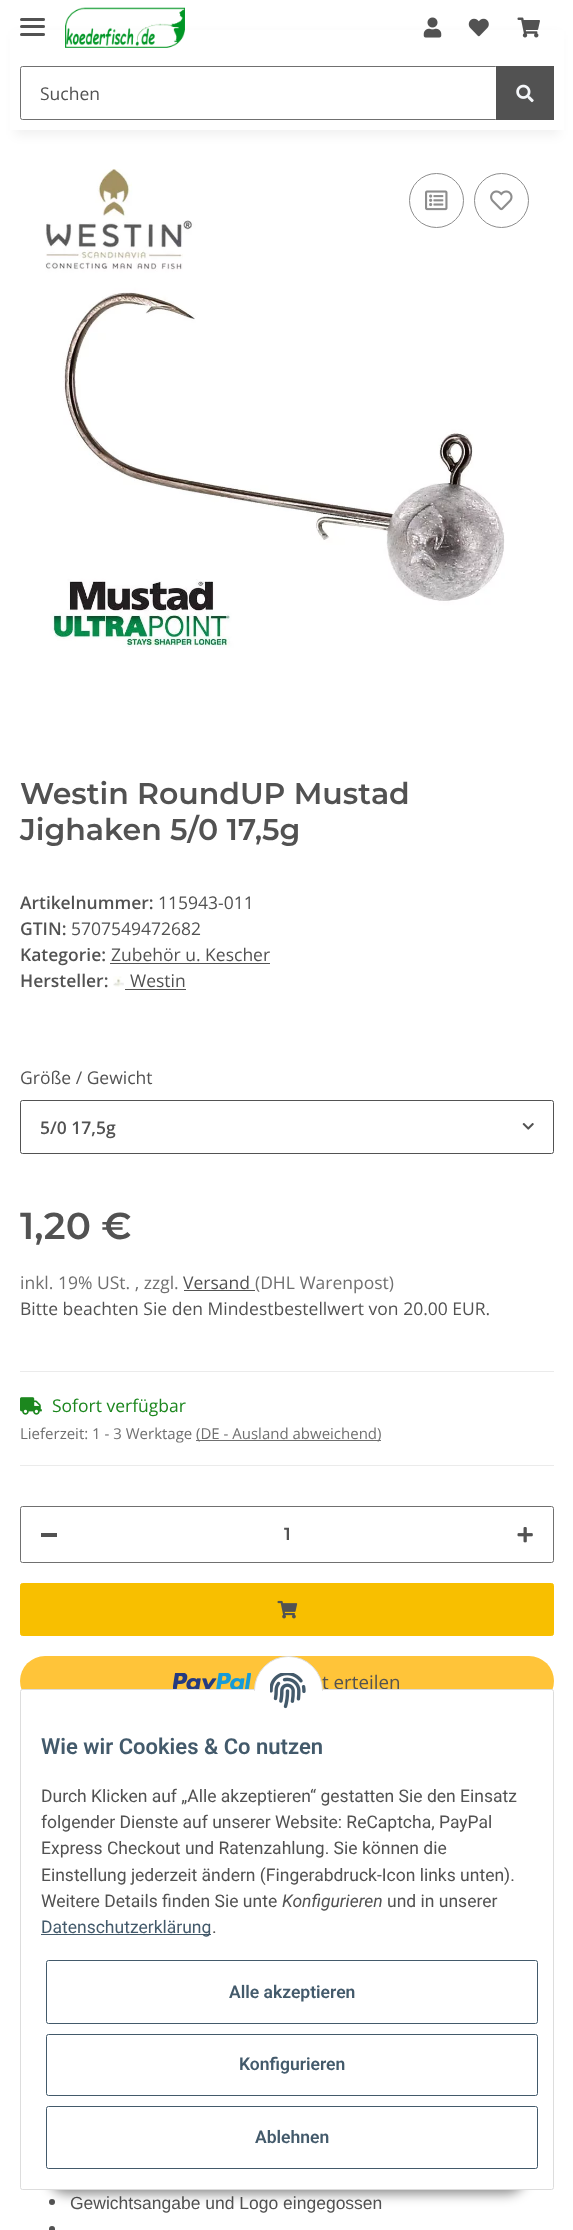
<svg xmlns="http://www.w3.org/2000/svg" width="573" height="2230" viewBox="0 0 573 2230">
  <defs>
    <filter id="blur1" x="-50%" y="-200%" width="200%" height="500%"><feGaussianBlur stdDeviation="5.5"/></filter>
    <filter id="blur2" x="-50%" y="-200%" width="200%" height="500%"><feGaussianBlur stdDeviation="6"/></filter>
  </defs>
  <rect width="100%" height="100%" fill="#ffffff"/>
  <rect x="15" y="35" width="544" height="100" fill="#000000" fill-opacity="0.06" filter="url(#blur1)"/>
  <rect x="10" y="30" width="554" height="100" fill="#ffffff"/>
  <rect x="20" y="25" width="25" height="3" rx="1.5" fill="#525252"/>
  <rect x="20" y="18" width="25" height="3" rx="1.5" fill="#525252"/>
  <rect x="20" y="33" width="25" height="3" rx="1.5" fill="#525252"/>
  <image x="65" y="7" width="120" height="41" href="img1.png"/>
  <image x="423" y="17" width="19" height="21" href="img2.png"/>
  <image x="468" y="18" width="21" height="19" href="img3.png"/>
  <image x="517" y="17" width="23" height="21" href="img4.png"/>
  <rect x="20.5" y="66.5" width="477" height="53" rx="2" fill="none" stroke="#707070"/>
  <text x="40" y="100" font-family="Open Sans" font-size="17.5" fill="#525252">Suchen</text>
  <rect x="496" y="66" width="58" height="54" fill="#525252"/>
  <image x="516" y="84" width="18" height="19" href="img5.png"/>
  <image x="45" y="169" width="460" height="479" href="img6.png"/>
  <circle cx="436.5" cy="200.5" r="27" fill="none" stroke="#8d8d8d"/>
  <image x="425" y="190" width="23" height="21" href="img7.png"/>
  <circle cx="501.5" cy="200.5" r="27" fill="none" stroke="#8d8d8d"/>
  <image x="490" y="190" width="23" height="21" href="img8.png"/>
  <text x="20" y="804" font-family="Montserrat" font-size="30" font-weight="600" fill="#525252">Westin RoundUP Mustad</text>
  <text x="20" y="840" font-family="Montserrat" font-size="30" font-weight="600" fill="#525252">Jighaken 5/0 17,5g</text>
  <text x="20" y="909" font-family="Open Sans" font-size="17.5" font-weight="600" fill="#525252">Artikelnummer:</text>
  <text x="158" y="909" font-family="Open Sans" font-size="17.5" fill="#525252">115943-011</text>
  <text x="20" y="935" font-family="Open Sans" font-size="17.5" font-weight="600" fill="#525252">GTIN:</text>
  <text x="71" y="935" font-family="Open Sans" font-size="17.5" fill="#525252">5707549472682</text>
  <text x="20" y="961" font-family="Open Sans" font-size="17.5" font-weight="600" fill="#525252">Kategorie:</text>
  <text x="111" y="961" font-family="Open Sans" font-size="17.5" fill="#525252">Zubehör u. Kescher</text>
  <rect x="110" y="963" width="160" height="1" fill="#525252"/>
  <text x="20" y="987" font-family="Open Sans" font-size="17.5" font-weight="600" fill="#525252">Hersteller:</text>
  <image x="113" y="976" width="11" height="11" href="img9.png"/>
  <text x="130" y="987" font-family="Open Sans" font-size="17.5" fill="#525252">Westin</text>
  <rect x="125" y="989" width="61" height="1" fill="#525252"/>
  <text x="20" y="1084" font-family="Open Sans" font-size="17.5" fill="#525252">Größe / Gewicht</text>
  <rect x="20.5" y="1100.5" width="533" height="53" rx="2" fill="none" stroke="#525252"/>
  <text x="40" y="1134" font-family="Open Sans" font-size="17.5" font-weight="600" fill="#525252">5/0 17,5g</text>
  <image x="522" y="1123" width="12" height="7" href="img10.png"/>
  <text x="20" y="1239" font-family="Montserrat" font-size="37.5" font-weight="600" fill="#525252">1,20 €</text>
  <text x="20" y="1289" font-family="Open Sans" font-size="17.5" fill="#707070">inkl. 19% USt. , zzgl.</text>
  <text x="183" y="1289" font-family="Open Sans" font-size="17.5" fill="#525252">Versand</text>
  <text x="255" y="1289" font-family="Open Sans" font-size="17.5" fill="#707070">(DHL Warenpost)</text>
  <rect x="184" y="1290" width="71" height="1" fill="#525252"/>
  <text x="20" y="1315" font-family="Open Sans" font-size="17.5" fill="#525252">Bitte beachten Sie den Mindestbestellwert von 20.00 EUR.</text>
  <rect x="20" y="1371" width="534" height="1" fill="#ebebeb"/>
  <rect x="20" y="1465" width="534" height="1" fill="#ebebeb"/>
  <image x="20" y="1397" width="22" height="18" href="img11.png"/>
  <text x="52" y="1412" font-family="Open Sans" font-size="17.5" fill="#1c871e">Sofort verfügbar</text>
  <text x="20" y="1439" font-family="Open Sans" font-size="15" fill="#707070">Lieferzeit: 1 - 3 Werktage</text>
  <rect x="196" y="1440" width="185" height="1" fill="#707070"/>
  <text x="196" y="1439" font-family="Open Sans" font-size="15" fill="#707070">(DE - Ausland abweichend)</text>
  <rect x="20.5" y="1506.5" width="533" height="56" rx="2" fill="none" stroke="#707070"/>
  <rect x="41" y="1533" width="16" height="4" fill="#525252"/>
  <text x="284" y="1540" font-family="Montserrat" font-size="17.5" font-weight="600" fill="#525252">1</text>
  <image x="517" y="1527" width="16" height="16" href="img12.png"/>
  <rect x="20.5" y="1583.5" width="533" height="52" rx="2" fill="#f8bf00" stroke="#f8bf00"/>
  <image x="277" y="1600" width="21" height="19" href="img13.png"/>
  <rect x="20" y="1656" width="534" height="50" rx="25" fill="#ffc439"/>
  <image x="173" y="1673" width="78" height="16" href="img14.png"/>
  <text x="322" y="1689" font-family="Open Sans" font-size="18.75" fill="#525252">t erteilen</text>
  <circle cx="52" cy="2202" r="3" fill="#525252"/>
  <text x="70" y="2209" font-family="Liberation Sans" font-size="17.5" fill="#525252">Gewichtsangabe und Logo eingegossen</text>
  <rect x="49" y="2226" width="6" height="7" rx="3" fill="#525252"/>
  <rect x="48" y="2154" width="478" height="40" rx="20" fill="#000000" fill-opacity="0.45" filter="url(#blur2)"/>
  <rect x="20.5" y="1689.5" width="533" height="500" rx="2" fill="#ffffff" stroke="#dddddd"/>
  <circle cx="288.5" cy="1690.5" r="34" fill="#ffffff" stroke="#dddddd"/>
  <rect x="254" y="1691" width="69" height="34" fill="#ffffff"/>
  <image x="270" y="1673" width="36" height="36" href="img15.png"/>
  <text x="41" y="1754" font-family="Roboto" font-size="22" font-weight="600" fill="#435a6b">Wie wir Cookies &amp; Co nutzen</text>
  <text x="41" y="1802" font-family="Roboto" font-size="17.5" fill="#525252">Durch Klicken auf „Alle akzeptieren“ gestatten Sie den Einsatz</text>
  <text x="41" y="1828" font-family="Roboto" font-size="17.5" fill="#525252">folgender Dienste auf unserer Website: ReCaptcha, PayPal</text>
  <text x="41" y="1854" font-family="Roboto" font-size="17.5" fill="#525252">Express Checkout und Ratenzahlung. Sie können die</text>
  <text x="41" y="1881" font-family="Roboto" font-size="17.5" fill="#525252">Einstellung jederzeit ändern (Fingerabdruck-Icon links unten).</text>
  <text x="41" y="1907" font-family="Roboto" font-size="17.5" fill="#525252">Weitere Details finden Sie unte</text>
  <text x="282" y="1907" font-family="Roboto" font-size="17.5" font-style="italic" fill="#525252">Konfigurieren</text>
  <text x="387" y="1907" font-family="Roboto" font-size="17.5" fill="#525252">und in unserer</text>
  <rect x="41" y="1934" width="170" height="1" fill="#435a6b"/>
  <text x="41" y="1933" font-family="Roboto" font-size="17.5" fill="#435a6b">Datenschutzerklärung</text>
  <text x="212" y="1933" font-family="Roboto" font-size="17.5" fill="#525252">.</text>
  <rect x="46.5" y="1960.5" width="491" height="63" rx="2" fill="none" stroke="#435a6b"/>
  <text x="229" y="1998" font-family="Roboto" font-size="17.5" font-weight="600" fill="#435a6b">Alle akzeptieren</text>
  <rect x="46.5" y="2034.5" width="491" height="61" rx="2" fill="none" stroke="#435a6b"/>
  <text x="239" y="2070" font-family="Roboto" font-size="17.5" font-weight="600" fill="#435a6b">Konfigurieren</text>
  <rect x="46.5" y="2106.5" width="491" height="62" rx="2" fill="none" stroke="#435a6b"/>
  <text x="255" y="2143" font-family="Roboto" font-size="17.5" font-weight="600" fill="#435a6b">Ablehnen</text>
</svg>
